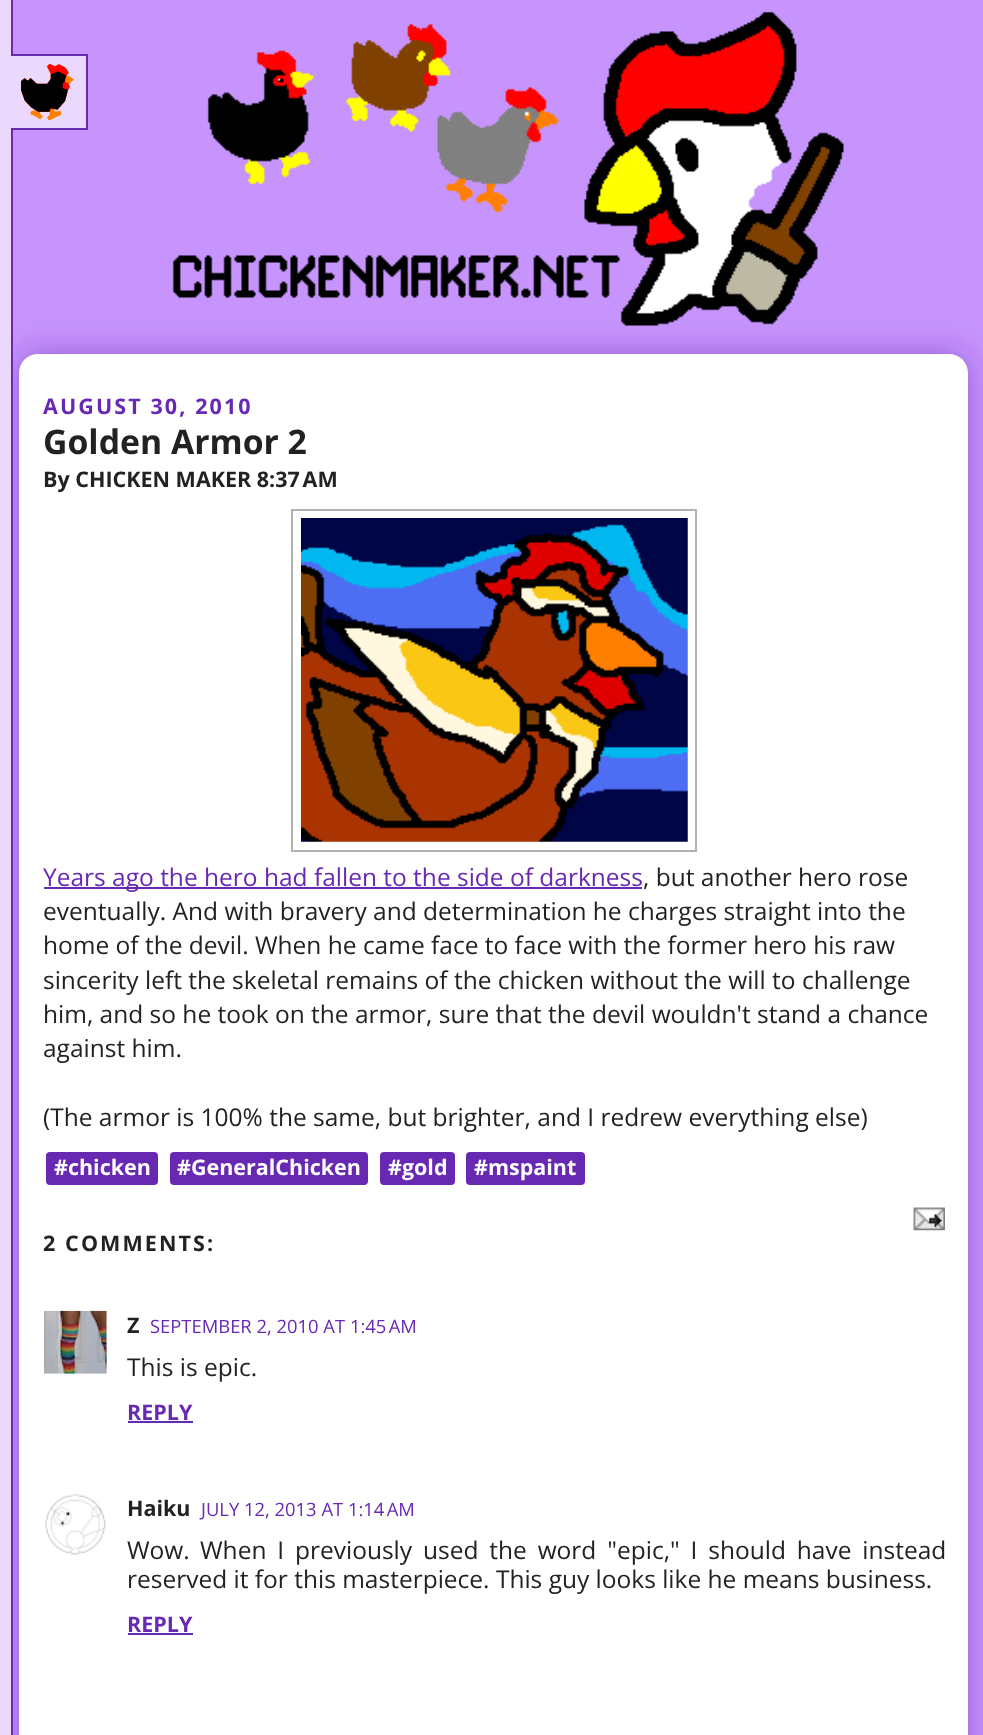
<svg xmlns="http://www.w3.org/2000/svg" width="983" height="1735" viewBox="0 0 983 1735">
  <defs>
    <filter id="blur1" x="-50%" y="-200%" width="200%" height="500%"><feGaussianBlur stdDeviation="15.5"/></filter>
  </defs>
  <rect width="100%" height="100%" fill="#c694fc"/>
  <rect x="19" y="354" width="949" height="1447" rx="19" fill="#6728b2" fill-opacity="0.53" filter="url(#blur1)"/>
  <image x="172" y="11" width="672" height="315" href="img1.png"/>
  <rect x="0" y="0" width="11" height="1735" fill="#ead8fd"/>
  <rect x="11" y="0" width="2" height="1735" fill="#6728b2"/>
  <rect x="11" y="56" width="75" height="72" fill="#ead8fd"/>
  <rect x="11" y="54" width="77" height="2" fill="#6728b2"/>
  <rect x="86" y="54" width="2" height="76" fill="#6728b2"/>
  <rect x="11" y="128" width="77" height="2" fill="#6728b2"/>
  <image x="21" y="63" width="53" height="58" href="img2.png"/>
  <rect x="19" y="354" width="949" height="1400" rx="19" fill="#ffffff"/>
  <text x="43" y="414" font-family="Open Sans" font-size="21.5" font-weight="bold" letter-spacing="2.1" fill="#6728b2">AUGUST 30, 2010</text>
  <text x="43" y="454" font-family="Open Sans" font-size="33.75" font-weight="bold" fill="#222222">Golden Armor 2</text>
  <text x="43" y="487" font-family="Open Sans" font-size="21.5" font-weight="bold" fill="#222222">By CHICKEN MAKER 8:37 AM</text>
  <rect x="292" y="510" width="404" height="341" fill="none" stroke="#b2b2b2" stroke-width="2"/>
  <image x="301" y="518" width="387" height="324" href="img3.png"/>
  <rect x="44" y="887" width="598" height="2" fill="#6728b2"/>
  <text x="43" y="886" font-family="Open Sans" font-size="24.5" fill="#6728b2">Years ago the hero had fallen to the side of darkness</text>
  <text x="643" y="886" font-family="Open Sans" font-size="24.5" fill="#222222">, but another hero rose</text>
  <text x="43" y="920" font-family="Open Sans" font-size="24.5" fill="#222222">eventually. And with bravery and determination he charges straight into the</text>
  <text x="43" y="954" font-family="Open Sans" font-size="24.5" fill="#222222">home of the devil. When he came face to face with the former hero his raw</text>
  <text x="43" y="989" font-family="Open Sans" font-size="24.5" fill="#222222">sincerity left the skeletal remains of the chicken without the will to challenge</text>
  <text x="43" y="1023" font-family="Open Sans" font-size="24.5" fill="#222222">him, and so he took on the armor, sure that the devil wouldn't stand a chance</text>
  <text x="43" y="1057" font-family="Open Sans" font-size="24.5" fill="#222222">against him.</text>
  <text x="43" y="1126" font-family="Open Sans" font-size="24.5" fill="#222222">(The armor is 100% the same, but brighter, and I redrew everything else)</text>
  <rect x="46" y="1152" width="112" height="33" rx="4" fill="#6728b2"/>
  <text x="54" y="1175" font-family="Open Sans" font-size="21.5" font-weight="bold" fill="#ffffff">#chicken</text>
  <rect x="170" y="1152" width="198" height="33" rx="4" fill="#6728b2"/>
  <text x="177" y="1175" font-family="Open Sans" font-size="21.5" font-weight="bold" fill="#ffffff">#GeneralChicken</text>
  <rect x="380" y="1152" width="75" height="33" rx="4" fill="#6728b2"/>
  <text x="388" y="1175" font-family="Open Sans" font-size="21.5" font-weight="bold" fill="#ffffff">#gold</text>
  <rect x="466" y="1152" width="119" height="33" rx="4" fill="#6728b2"/>
  <text x="474" y="1175" font-family="Open Sans" font-size="21.5" font-weight="bold" fill="#ffffff">#mspaint</text>
  <image x="913" y="1207" width="32" height="24" href="img4.png"/>
  <text x="43" y="1251" font-family="Open Sans" font-size="21.5" font-weight="bold" letter-spacing="2.1" fill="#222222">2 COMMENTS:</text>
  <image x="43" y="1310" width="64" height="64" href="img5.png"/>
  <text x="127" y="1333" font-family="Open Sans" font-size="21.5" font-weight="bold" fill="#222222">Z</text>
  <text x="150" y="1333" font-family="Open Sans" font-size="18.4" fill="#6728b2">SEPTEMBER 2, 2010 AT 1:45 AM</text>
  <text x="127" y="1376" font-family="Open Sans" font-size="24.5" fill="#222222">This is epic.</text>
  <text x="127" y="1420" font-family="Open Sans" font-size="21.5" font-weight="bold" fill="#6728b2">REPLY</text>
  <rect x="128" y="1421" width="65" height="2" fill="#6728b2"/>
  <image x="45" y="1494" width="61" height="61" href="img6.png"/>
  <text x="127" y="1516" font-family="Open Sans" font-size="21.5" font-weight="bold" fill="#222222">Haiku</text>
  <text x="201" y="1516" font-family="Open Sans" font-size="18.4" fill="#6728b2">JULY 12, 2013 AT 1:14 AM</text>
  <text x="127" y="1559" font-family="Open Sans" font-size="24.5" fill="#222222">Wow.</text>
  <text x="200" y="1559" word-spacing="4.5" font-family="Open Sans" font-size="24.5" fill="#222222">When I previously used the word "epic," I should have instead</text>
  <text x="127" y="1588" font-family="Open Sans" font-size="24.5" fill="#222222">reserved it for this masterpiece. This guy looks like he means business.</text>
  <text x="127" y="1632" font-family="Open Sans" font-size="21.5" font-weight="bold" fill="#6728b2">REPLY</text>
  <rect x="128" y="1633" width="65" height="2" fill="#6728b2"/>
</svg>
